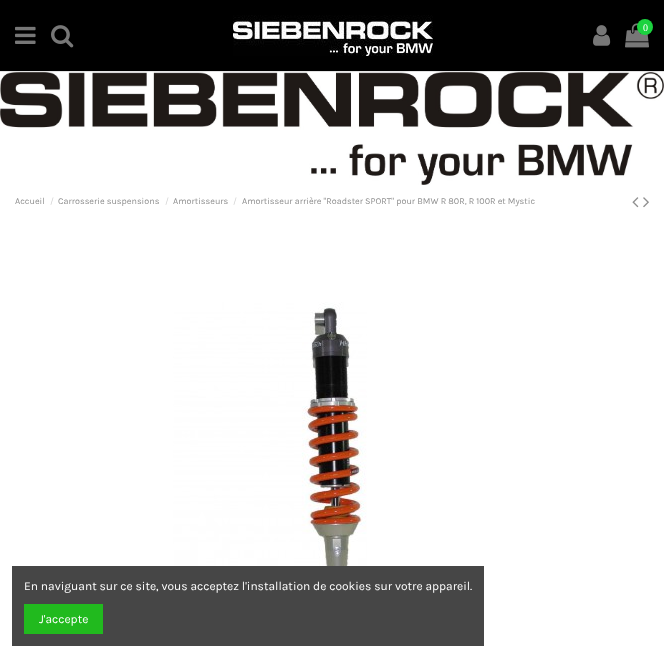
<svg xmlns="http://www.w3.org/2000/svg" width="664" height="658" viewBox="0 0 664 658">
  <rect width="100%" height="100%" fill="#ffffff"/>
  <rect x="0" y="0" width="664" height="71" fill="#000000"/>
  <rect x="0" y="71" width="664" height="1" fill="#e3e3e3"/>
  <image x="15" y="26" width="21" height="18" href="img1.png"/>
  <image x="51" y="25" width="23" height="23" href="img2.png"/>
  <image x="233" y="15" width="200" height="41" href="img3.png"/>
  <image x="593" y="25" width="18" height="21" href="img4.png"/>
  <image x="625" y="23" width="24" height="25" href="img5.png"/>
  <circle cx="645" cy="27" r="8" fill="#1bd33f"/>
  <text x="643" y="31" font-family="Liberation Serif" font-size="10" fill="#ffffff">0</text>
  <image x="0" y="72" width="664" height="113" href="img6.png"/>
  <text x="15" y="204" font-family="Karla" font-size="9" fill="#8f8f8f">Accueil</text>
  <text x="50" y="204" font-family="Karla" font-size="9" fill="#d2d2d2">/</text>
  <text x="58" y="204" font-family="Karla" font-size="9" fill="#8f8f8f">Carrosserie suspensions</text>
  <text x="165" y="204" font-family="Karla" font-size="9" fill="#d2d2d2">/</text>
  <text x="173" y="204" font-family="Karla" font-size="9" fill="#8f8f8f">Amortisseurs</text>
  <text x="233" y="204" font-family="Karla" font-size="9" fill="#d2d2d2">/</text>
  <text x="242" y="204" font-family="Karla" font-size="9" fill="#8f8f8f">Amortisseur arrière "Roadster SPORT" pour BMW R 80R, R 100R et Mystic</text>
  <image x="632" y="197" width="7" height="11" href="img7.png"/>
  <image x="643" y="197" width="6" height="11" href="img8.png"/>
  <image x="173" y="302" width="194" height="264" href="img9.png"/>
  <rect x="12" y="566" width="472" height="80" fill="#464646"/>
  <text x="24" y="590" font-family="Karla" font-size="12" fill="#ffffff">En naviguant sur ce site, vous acceptez l'installation de cookies sur votre appareil.</text>
  <rect x="24" y="604" width="79" height="30" fill="#21ba1e"/>
  <text x="39" y="623" font-family="Karla" font-size="12" fill="#ffffff">J'accepte</text>
</svg>
